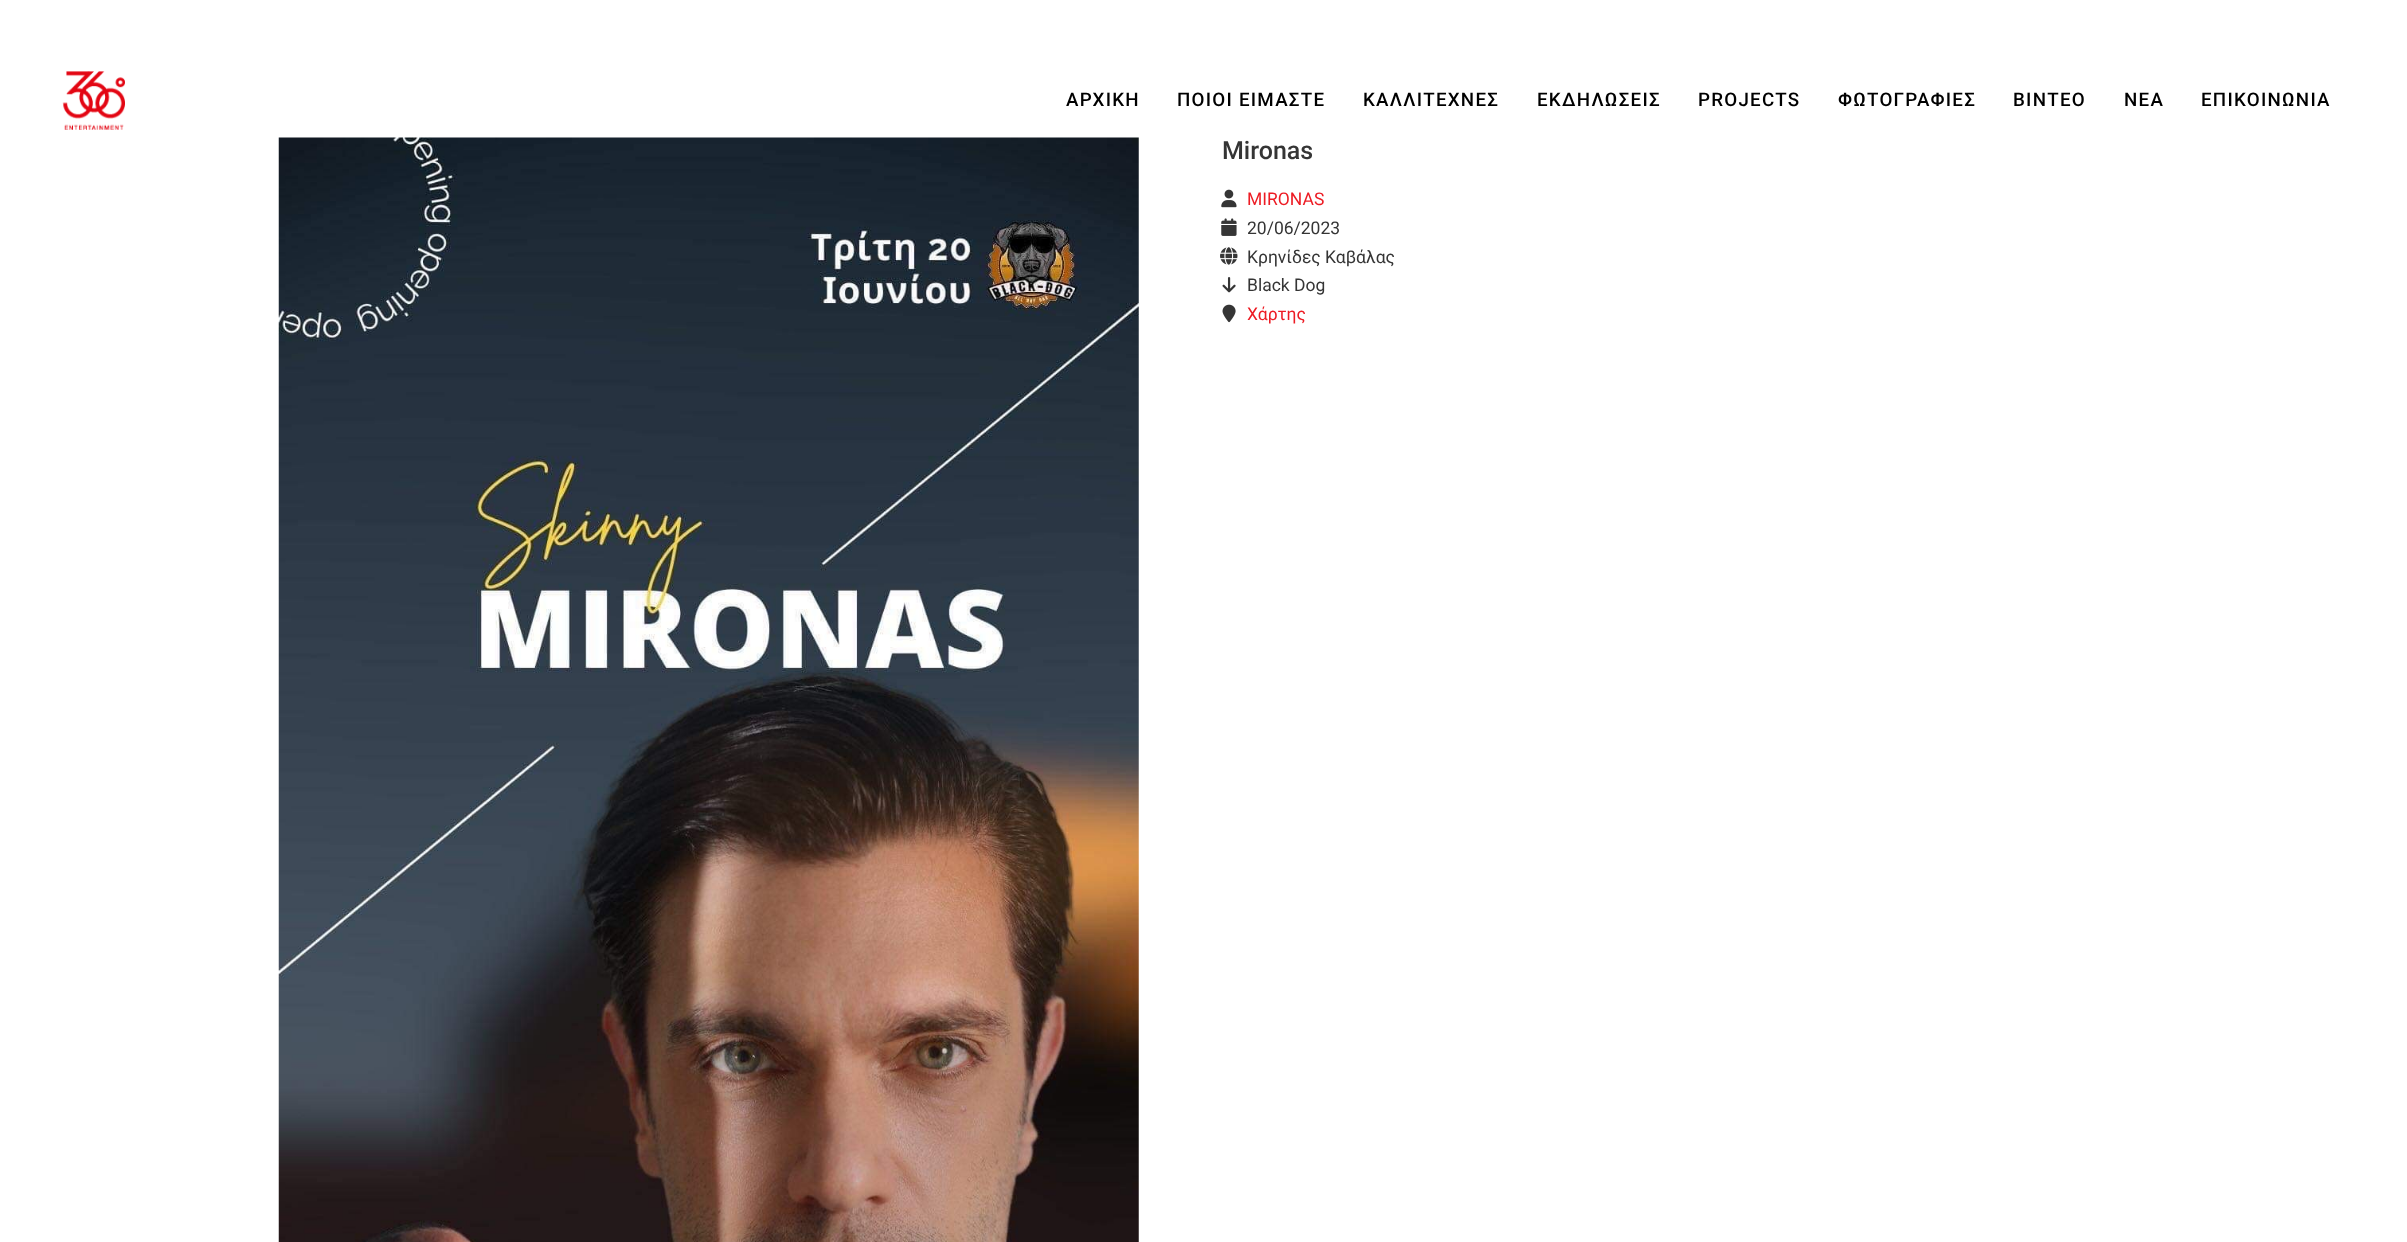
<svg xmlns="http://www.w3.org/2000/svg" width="2407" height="1242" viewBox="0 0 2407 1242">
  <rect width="100%" height="100%" fill="#ffffff"/>
  <image x="62" y="71" width="63" height="59" href="img1.png"/>
  <text x="1066" y="106" font-family="Roboto" font-size="18.75" font-weight="500" letter-spacing="1.25" fill="#000000">ΑΡΧΙΚΗ</text>
  <text x="1177" y="106" font-family="Roboto" font-size="18.75" font-weight="500" letter-spacing="1.25" fill="#000000">ΠΟΙΟΙ ΕΙΜΑΣΤΕ</text>
  <text x="1363" y="106" font-family="Roboto" font-size="18.75" font-weight="500" letter-spacing="1.25" fill="#000000">ΚΑΛΛΙΤΕΧΝΕΣ</text>
  <text x="1537" y="106" font-family="Roboto" font-size="18.75" font-weight="500" letter-spacing="1.25" fill="#000000">ΕΚΔΗΛΩΣΕΙΣ</text>
  <text x="1698" y="106" font-family="Roboto" font-size="18.75" font-weight="500" letter-spacing="1.25" fill="#000000">PROJECTS</text>
  <text x="1838" y="106" font-family="Roboto" font-size="18.75" font-weight="500" letter-spacing="1.25" fill="#000000">ΦΩΤΟΓΡΑΦΙΕΣ</text>
  <text x="2013" y="106" font-family="Roboto" font-size="18.75" font-weight="500" letter-spacing="1.25" fill="#000000">ΒΙΝΤΕΟ</text>
  <text x="2124" y="106" font-family="Roboto" font-size="18.75" font-weight="500" letter-spacing="1.25" fill="#000000">ΝΕΑ</text>
  <text x="2201" y="106" font-family="Roboto" font-size="18.75" font-weight="500" letter-spacing="1.25" fill="#000000">ΕΠΙΚΟΙΝΩΝΙΑ</text>
  <image x="278" y="137" width="861" height="1105" href="img2.png"/>
  <text x="1222" y="159" font-family="Roboto" font-size="25" font-weight="500" fill="#353535">Mironas</text>
  <image x="1221" y="189" width="16" height="19" href="img3.png"/>
  <text x="1247" y="205" font-family="Roboto" font-size="17.5" fill="#ed1c24">MIRONAS</text>
  <image x="1221" y="218" width="16" height="18" href="img4.png"/>
  <text x="1247" y="234" font-family="Roboto" font-size="17.5" fill="#353535">20/06/2023</text>
  <image x="1220" y="247" width="18" height="18" href="img5.png"/>
  <text x="1247" y="263" font-family="Roboto" font-size="17.5" fill="#353535">Κρηνίδες Καβάλας</text>
  <image x="1222" y="277" width="14" height="16" href="img6.png"/>
  <text x="1247" y="291" font-family="Roboto" font-size="17.5" fill="#353535">Black Dog</text>
  <image x="1222" y="304" width="14" height="19" href="img7.png"/>
  <text x="1247" y="320" font-family="Roboto" font-size="17.5" fill="#ed1c24">Χάρτης</text>
</svg>
